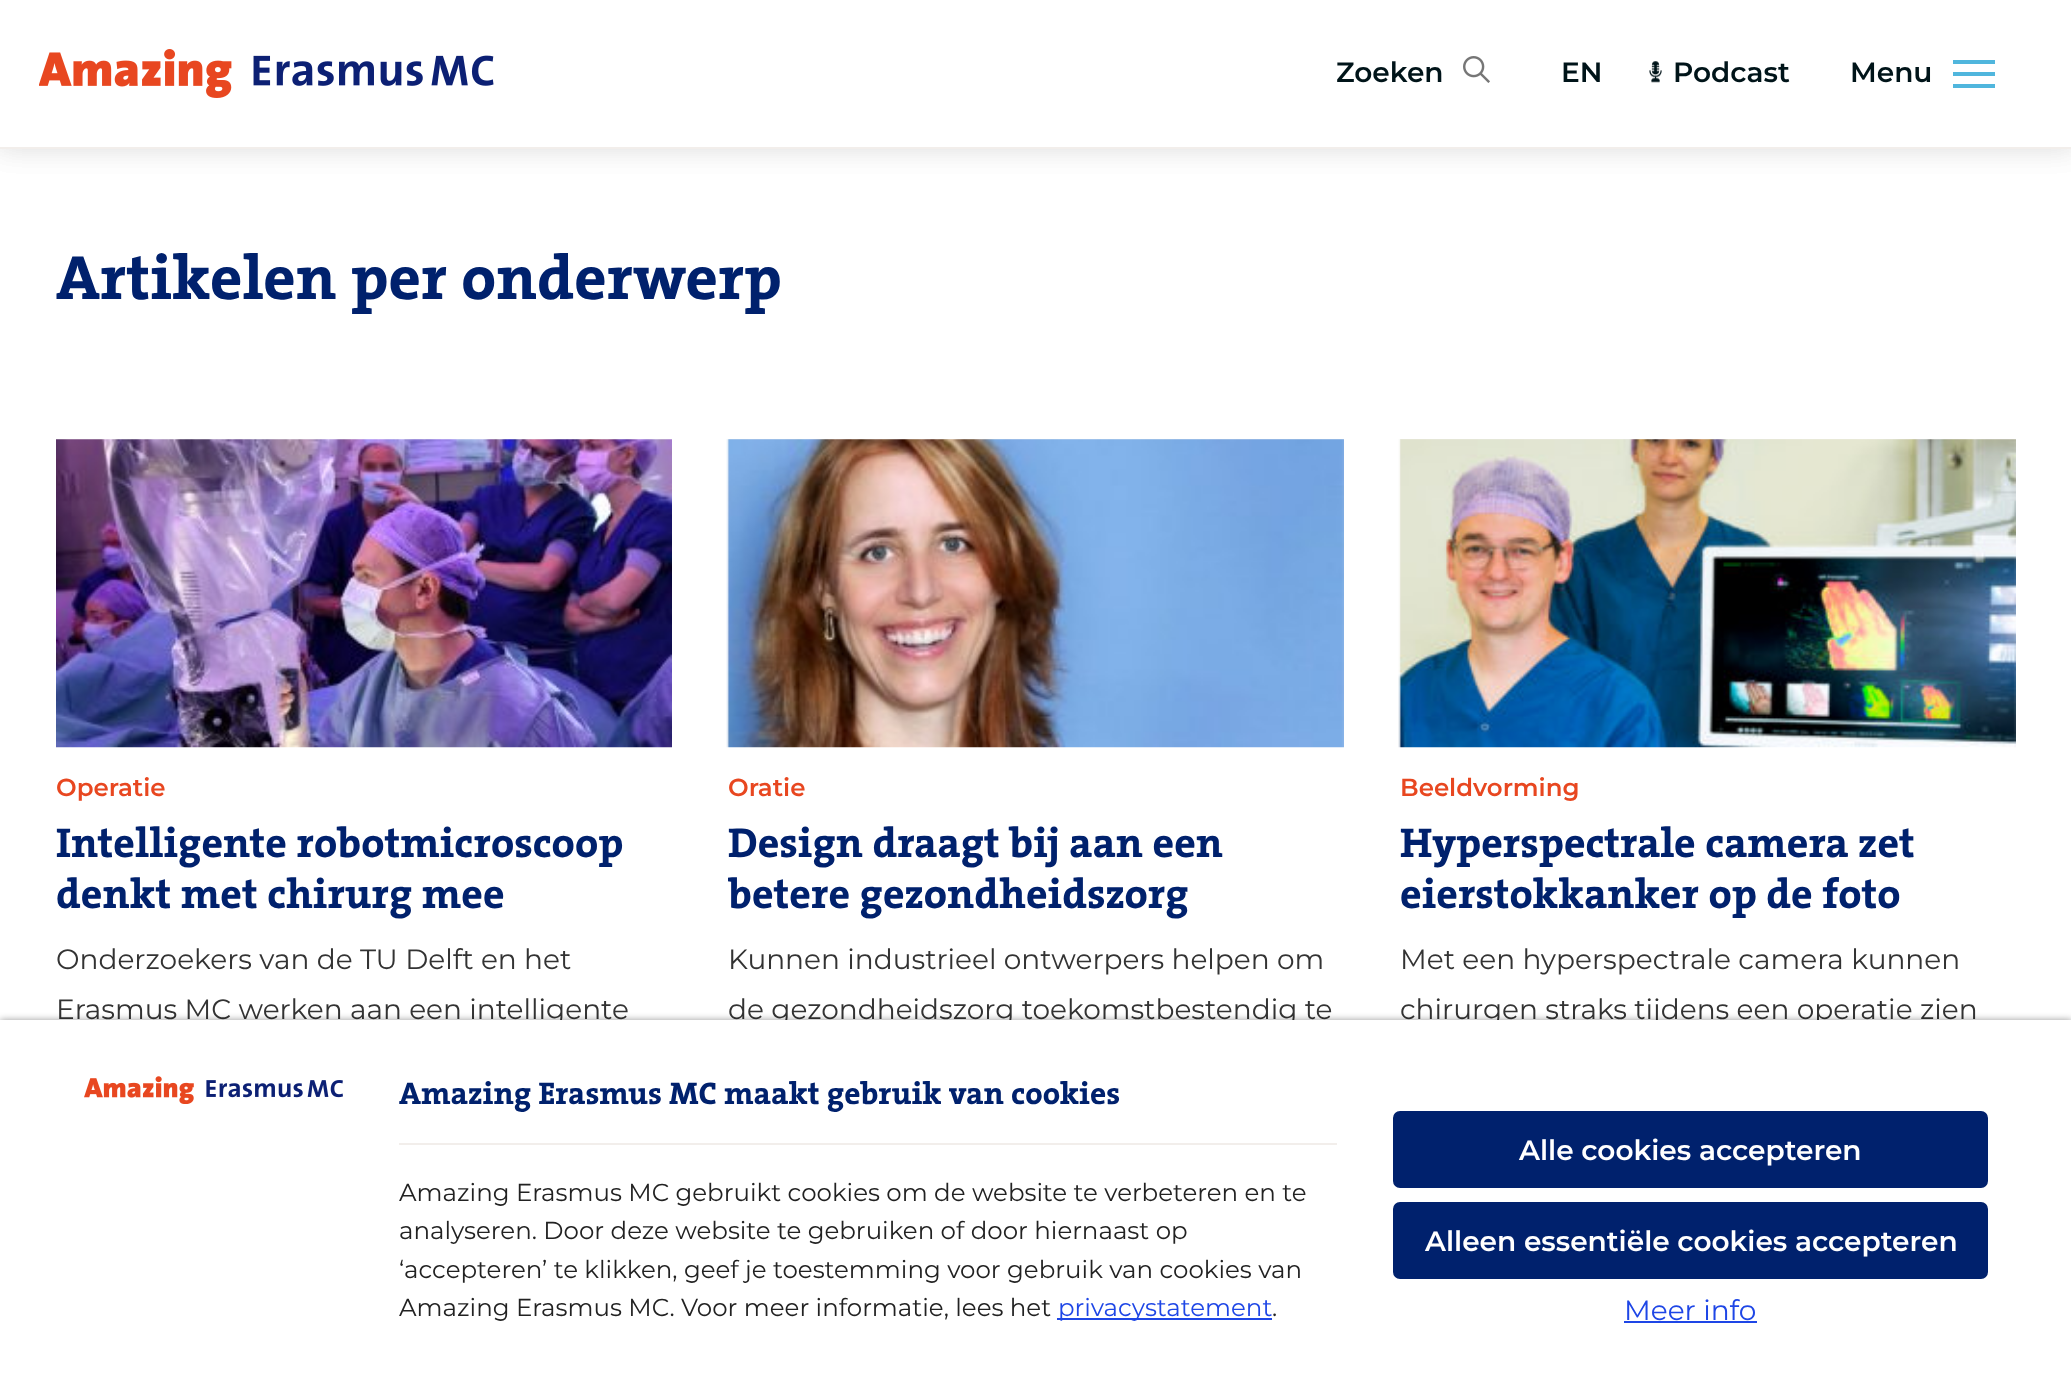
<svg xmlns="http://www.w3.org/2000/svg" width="2071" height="1381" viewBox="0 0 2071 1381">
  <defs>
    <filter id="blur1" x="-50%" y="-200%" width="200%" height="500%"><feGaussianBlur stdDeviation="14"/></filter>
    <clipPath id="clip1"><rect x="728" y="821" width="616" height="101"/></clipPath>
    <filter id="blur2" x="-50%" y="-200%" width="200%" height="500%"><feGaussianBlur stdDeviation="3.5"/></filter>
  </defs>
  <rect width="100%" height="100%" fill="#ffffff"/>
  <rect x="-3" y="-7" width="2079" height="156" fill="#000000" fill-opacity="0.07" filter="url(#blur1)"/>
  <rect x="-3" y="-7" width="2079" height="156" fill="#000000" fill-opacity="0.07" filter="url(#blur1)"/>
  <rect x="0" y="0" width="2071" height="147" fill="#ffffff"/>
  <rect x="0" y="147" width="2071" height="2" fill="#f2eeeb"/>
  <image x="39" y="49" width="455" height="49" href="img1.png"/>
  <text x="1336" y="82" font-family="Montserrat" font-size="28" font-weight="600" fill="#001419">Zoeken</text>
  <image x="1463" y="56" width="27" height="27" href="img2.png"/>
  <text x="1561" y="82" font-family="Montserrat" font-size="28" font-weight="600" fill="#001419">EN</text>
  <image x="1649" y="61" width="13" height="22" href="img3.png"/>
  <text x="1673" y="82" font-family="Montserrat" font-size="28" font-weight="600" fill="#001419">Podcast</text>
  <text x="1850" y="82" font-family="Montserrat" font-size="28" font-weight="600" fill="#001419">Menu</text>
  <rect x="1953" y="72" width="42" height="4" fill="#50b6dd"/>
  <rect x="1953" y="60" width="42" height="4" fill="#50b6dd"/>
  <rect x="1953" y="84" width="42" height="4" fill="#50b6dd"/>
  <text x="56" y="299" font-family="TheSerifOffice" font-size="63" font-weight="bold" fill="#00216d">Artikelen per onderwerp</text>
  <image x="56" y="439" width="616" height="309" href="img4.png"/>
  <text x="56" y="796" font-family="Montserrat" font-size="24.5" font-weight="600" fill="#e84720">Operatie</text>
  <text x="56" y="857" font-family="TheSerifOffice" font-size="42" font-weight="bold" fill="#00216d">Intelligente robotmicroscoop</text>
  <text x="56" y="908" font-family="TheSerifOffice" font-size="42" font-weight="bold" fill="#00216d">denkt met chirurg mee</text>
  <text x="56" y="969" font-family="Montserrat" font-size="28" fill="#333333">Onderzoekers van de TU Delft en het</text>
  <text x="56" y="1019" font-family="Montserrat" font-size="28" fill="#333333">Erasmus MC werken aan een intelligente</text>
  <rect x="728" y="439" width="616" height="308" fill="#f2eeeb"/>
  <image x="726" y="439" width="618" height="309" href="img5.png"/>
  <text x="728" y="796" font-family="Montserrat" font-size="24.5" font-weight="600" fill="#e84720">Oratie</text>
  <text x="728" y="857" font-family="TheSerifOffice" font-size="42" font-weight="bold" fill="#00216d">Design draagt bij aan een</text>
  <g clip-path="url(#clip1)">
    <text x="728" y="908" font-family="TheSerifOffice" font-size="42" font-weight="bold" fill="#00216d">betere gezondheidszorg</text>
  </g>
  <text x="728" y="969" font-family="Montserrat" font-size="28" fill="#333333">Kunnen industrieel ontwerpers helpen om</text>
  <text x="728" y="1019" font-family="Montserrat" font-size="28" fill="#333333">de gezondheidszorg toekomstbestendig te</text>
  <rect x="1400" y="439" width="616" height="308" fill="#f2eeeb"/>
  <image x="1398" y="439" width="618" height="309" href="img6.png"/>
  <text x="1400" y="796" font-family="Montserrat" font-size="24.5" font-weight="600" fill="#e84720">Beeldvorming</text>
  <text x="1400" y="857" font-family="TheSerifOffice" font-size="42" font-weight="bold" fill="#00216d">Hyperspectrale camera zet</text>
  <text x="1400" y="908" font-family="TheSerifOffice" font-size="42" font-weight="bold" fill="#00216d">eierstokkanker op de foto</text>
  <text x="1400" y="969" font-family="Montserrat" font-size="28" fill="#333333">Met een hyperspectrale camera kunnen</text>
  <text x="1400" y="1019" font-family="Montserrat" font-size="28" fill="#333333">chirurgen straks tijdens een operatie zien</text>
  <rect x="0" y="1020" width="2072" height="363" fill="#000000" fill-opacity="0.4" filter="url(#blur2)"/>
  <rect x="0" y="1020" width="2071" height="361" fill="#ffffff"/>
  <image x="84" y="1076" width="259" height="28" href="img7.png"/>
  <text x="399" y="1104" font-family="TheSerifOffice" font-size="31.5" font-weight="bold" fill="#00216d">Amazing Erasmus MC maakt gebruik van cookies</text>
  <rect x="399" y="1143" width="938" height="2" fill="#f2eeeb"/>
  <text x="399" y="1201" font-family="Montserrat" font-size="24.5" fill="#222222">Amazing Erasmus MC gebruikt cookies om de website te verbeteren en te</text>
  <text x="399" y="1239" font-family="Montserrat" font-size="24.5" fill="#222222">analyseren. Door deze website te gebruiken of door hiernaast op</text>
  <text x="399" y="1278" font-family="Montserrat" font-size="24.5" fill="#222222">‘accepteren’ te klikken, geef je toestemming voor gebruik van cookies van</text>
  <text x="399" y="1316" font-family="Montserrat" font-size="24.5" fill="#222222">Amazing Erasmus MC. Voor meer informatie, lees het</text>
  <rect x="1057" y="1318" width="215" height="2" fill="#1e46e6"/>
  <text x="1058" y="1316" font-family="Montserrat" font-size="24.5" fill="#1e46e6">privacystatement</text>
  <text x="1272" y="1316" font-family="Montserrat" font-size="24.5" fill="#222222">.</text>
  <rect x="1395" y="1113" width="591" height="73" rx="5" fill="#00216d" stroke="#00216d" stroke-width="4"/>
  <text x="1519" y="1160" font-family="Montserrat" font-size="28" font-weight="600" fill="#ffffff">Alle cookies accepteren</text>
  <rect x="1395" y="1204" width="591" height="73" rx="5" fill="#00216d" stroke="#00216d" stroke-width="4"/>
  <text x="1425" y="1251" font-family="Montserrat" font-size="28" font-weight="600" fill="#ffffff">Alleen essentiële cookies accepteren</text>
  <text x="1624" y="1320" font-family="Montserrat" font-size="28" fill="#1e46e6">Meer info</text>
  <rect x="1624" y="1321" width="133" height="2" fill="#1e46e6"/>
</svg>
